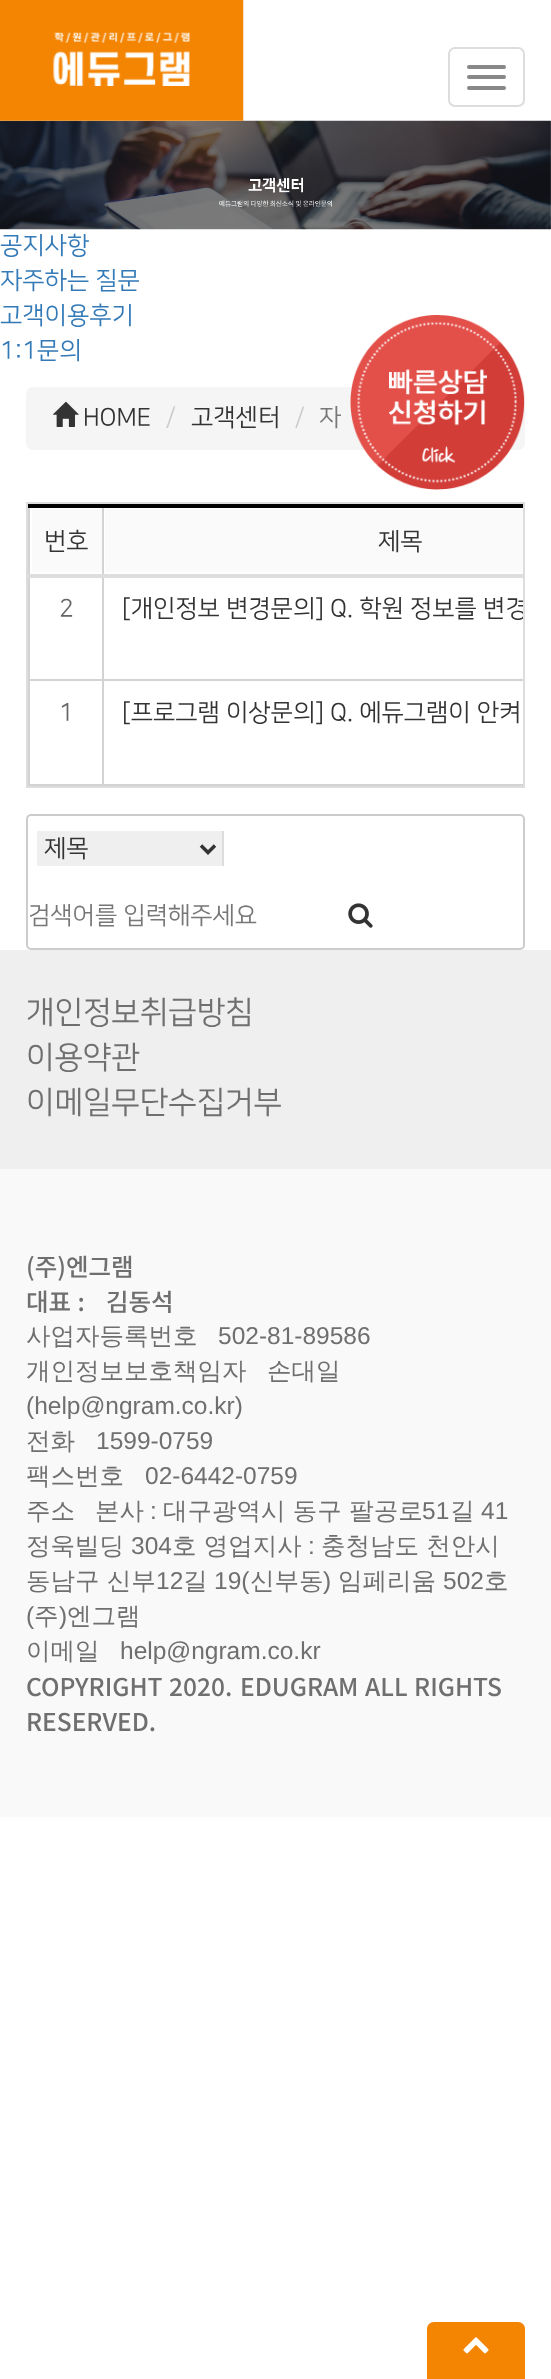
<svg xmlns="http://www.w3.org/2000/svg" width="551" height="2379" viewBox="0 0 551 2379">
  <defs>
    <clipPath id="clip1"><rect x="28" y="504" width="495" height="282"/></clipPath>
  </defs>
  <rect width="100%" height="100%" fill="#ffffff"/>
  <image x="0" y="120" width="551" height="110" href="img2.png"/>
  <image x="0" y="0" width="244" height="121" href="img1.png"/>
  <rect x="449" y="48" width="75" height="58" rx="6" fill="none" stroke="#dddddd" stroke-width="2"/>
  <rect x="467" y="65" width="39" height="4" rx="2" fill="#888888"/>
  <rect x="467" y="75" width="39" height="4" rx="2" fill="#888888"/>
  <rect x="467" y="86" width="39" height="4" rx="2" fill="#888888"/>
  <text x="0" y="253" font-family="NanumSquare" font-size="24.5" fill="#337ab7">공지사항</text>
  <text x="0" y="288" font-family="NanumSquare" font-size="24.5" fill="#337ab7">자주하는 질문</text>
  <text x="0" y="323" font-family="NanumSquare" font-size="24.5" fill="#337ab7">고객이용후기</text>
  <text x="0" y="358" font-family="NanumSquare" font-size="24.5" fill="#337ab7">1:1문의</text>
  <rect x="26" y="387" width="499" height="63" rx="7" fill="#f5f5f5"/>
  <image x="350" y="315" width="175" height="175" href="img3.png"/>
  <image x="52" y="401" width="27" height="26" href="img4.png"/>
  <text x="83" y="425" font-family="NanumSquare" font-size="24.5" fill="#333333">HOME</text>
  <text x="166" y="425" font-family="NanumSquare" font-size="24.5" fill="#cccccc">/</text>
  <text x="191" y="425" font-family="NanumSquare" font-size="24.5" fill="#333333">고객센터</text>
  <text x="295" y="425" font-family="NanumSquare" font-size="24.5" fill="#cccccc">/</text>
  <text x="319" y="425" font-family="NanumSquare" font-size="24.5" fill="#777777">자</text>
  <rect x="27" y="503" width="497" height="284" fill="none" stroke="#dddddd" stroke-width="2"/>
  <rect x="32" y="509" width="70" height="63" fill="#fafafa"/>
  <text x="44" y="549" font-family="NanumSquare" font-size="24.5" fill="#333333">번호</text>
  <rect x="105" y="509" width="418" height="63" fill="#fafafa"/>
  <rect x="102" y="784" width="421" height="2" fill="#d4d3d3"/>
  <rect x="102" y="679" width="2" height="107" fill="#d4d3d3"/>
  <rect x="102" y="679" width="421" height="2" fill="#d4d3d3"/>
  <rect x="102" y="504" width="2" height="177" fill="#d4d3d3"/>
  <rect x="28" y="784" width="75" height="2" fill="#d4d3d3"/>
  <rect x="28" y="679" width="2" height="107" fill="#d4d3d3"/>
  <rect x="28" y="679" width="75" height="2" fill="#d4d3d3"/>
  <rect x="28" y="504" width="2" height="177" fill="#d4d3d3"/>
  <rect x="28" y="504" width="495" height="4" fill="#000000"/>
  <rect x="28" y="574" width="495" height="4" fill="#dddddd"/>
  <text x="378" y="549" font-family="NanumSquare" font-size="24.5" fill="#333333">제목</text>
  <text x="59" y="616" font-family="NanumSquare" font-size="24.5" fill="#666666">2</text>
  <g clip-path="url(#clip1)">
    <text x="122" y="616" font-family="NanumSquare" font-size="24.5" fill="#333333">[개인정보 변경문의] Q. 학원 정보를 변경</text>
  </g>
  <text x="59" y="720" font-family="NanumSquare" font-size="24.5" fill="#666666">1</text>
  <text x="122" y="720" font-family="NanumSquare" font-size="24.5" fill="#333333">[프로그램 이상문의] Q. 에듀그램이 안켜</text>
  <rect x="27" y="815" width="497" height="134" rx="4" fill="none" stroke="#cccccc" stroke-width="2"/>
  <rect x="37" y="831" width="185" height="35" fill="#efefef"/>
  <rect x="222" y="831" width="2" height="35" fill="#dddddd"/>
  <path d="M201 845.5L208 852.5L215 845.5" fill="none" stroke="#333333" stroke-width="3.5"/>
  <text x="44" y="856" font-family="NanumSquare" font-size="24.5" fill="#333333">제목</text>
  <text x="28" y="923" font-family="NanumSquare" font-size="24.5" fill="#777777">검색어를 입력해주세요</text>
  <image x="348" y="903" width="25" height="25" href="img5.png"/>
  <rect x="0" y="950" width="551" height="219" fill="#efefef"/>
  <text x="26" y="1022" font-family="NanumSquare" font-size="31.25" fill="#6f6f6f">개인정보취급방침</text>
  <text x="26" y="1067" font-family="NanumSquare" font-size="31.25" fill="#6f6f6f">이용약관</text>
  <text x="26" y="1112" font-family="NanumSquare" font-size="31.25" fill="#6f6f6f">이메일무단수집거부</text>
  <rect x="0" y="1169" width="551" height="648" fill="#f9f9f9"/>
  <text x="26" y="1276" font-family="Noto Sans CJK KR" font-size="24.5" font-weight="500" fill="#6f6f6f">(주)엔그램</text>
  <text x="26" y="1311" word-spacing="1" font-family="Noto Sans CJK KR" font-size="24.5" font-weight="500" fill="#6f6f6f">대표 :</text>
  <text x="106" y="1311" font-family="Noto Sans CJK KR" font-size="24.5" font-weight="500" fill="#6f6f6f">김동석</text>
  <text x="26" y="1344" font-family="WenQuanYi Zen Hei" font-size="24.5" font-weight="500" fill="#6f6f6f">사업자등록번호</text>
  <text x="218" y="1344" font-family="Liberation Sans" font-size="24.5" fill="#6f6f6f">502-81-89586</text>
  <text x="26" y="1379" font-family="WenQuanYi Zen Hei" font-size="24.5" font-weight="500" fill="#6f6f6f">개인정보보호책임자</text>
  <text x="267" y="1379" font-family="WenQuanYi Zen Hei" font-size="24.5" font-weight="500" fill="#6f6f6f">손대일</text>
  <text x="26" y="1414" font-family="Liberation Sans" font-size="24.5" fill="#6f6f6f">(help@ngram.co.kr)</text>
  <text x="26" y="1449" font-family="WenQuanYi Zen Hei" font-size="24.5" font-weight="500" fill="#6f6f6f">전화</text>
  <text x="96" y="1449" font-family="Liberation Sans" font-size="24.5" fill="#6f6f6f">1599-0759</text>
  <text x="26" y="1484" font-family="WenQuanYi Zen Hei" font-size="24.5" font-weight="500" fill="#6f6f6f">팩스번호</text>
  <text x="145" y="1484" font-family="Liberation Sans" font-size="24.5" fill="#6f6f6f">02-6442-0759</text>
  <text x="26" y="1519" font-family="WenQuanYi Zen Hei" font-size="24.5" font-weight="500" fill="#6f6f6f">주소</text>
  <text x="95" y="1519" font-family="WenQuanYi Zen Hei" font-size="24.5" font-weight="500" fill="#6f6f6f">본사</text>
  <text x="150" y="1519" font-family="Liberation Sans" font-size="24.5" fill="#6f6f6f">:</text>
  <text x="163" y="1519" font-family="WenQuanYi Zen Hei" font-size="24.5" font-weight="500" fill="#6f6f6f">대구광역시 동구 팔공로</text>
  <text x="422" y="1519" font-family="Liberation Sans" font-size="24.5" fill="#6f6f6f">51</text>
  <text x="450" y="1519" font-family="WenQuanYi Zen Hei" font-size="24.5" font-weight="500" fill="#6f6f6f">길</text>
  <text x="481" y="1519" font-family="Liberation Sans" font-size="24.5" fill="#6f6f6f">41</text>
  <text x="26" y="1554" font-family="WenQuanYi Zen Hei" font-size="24.5" font-weight="500" fill="#6f6f6f">정욱빌딩</text>
  <text x="131" y="1554" font-family="Liberation Sans" font-size="24.5" fill="#6f6f6f">304</text>
  <text x="172" y="1554" font-family="WenQuanYi Zen Hei" font-size="24.5" font-weight="500" fill="#6f6f6f">호 영업지사</text>
  <text x="308" y="1554" font-family="Liberation Sans" font-size="24.5" fill="#6f6f6f">:</text>
  <text x="321" y="1554" font-family="WenQuanYi Zen Hei" font-size="24.5" font-weight="500" fill="#6f6f6f">충청남도 천안시</text>
  <text x="26" y="1589" font-family="WenQuanYi Zen Hei" font-size="24.5" font-weight="500" fill="#6f6f6f">동남구 신부</text>
  <text x="156" y="1589" font-family="Liberation Sans" font-size="24.5" fill="#6f6f6f">12</text>
  <text x="183" y="1589" font-family="WenQuanYi Zen Hei" font-size="24.5" font-weight="500" fill="#6f6f6f">길</text>
  <text x="214" y="1589" font-family="Liberation Sans" font-size="24.5" fill="#6f6f6f">19(</text>
  <text x="250" y="1589" font-family="WenQuanYi Zen Hei" font-size="24.5" font-weight="500" fill="#6f6f6f">신부동</text>
  <text x="323" y="1589" font-family="Liberation Sans" font-size="24.5" fill="#6f6f6f">)</text>
  <text x="338" y="1589" font-family="WenQuanYi Zen Hei" font-size="24.5" font-weight="500" fill="#6f6f6f">임페리움</text>
  <text x="443" y="1589" font-family="Liberation Sans" font-size="24.5" fill="#6f6f6f">502</text>
  <text x="484" y="1589" font-family="WenQuanYi Zen Hei" font-size="24.5" font-weight="500" fill="#6f6f6f">호</text>
  <text x="26" y="1624" font-family="Liberation Sans" font-size="24.5" fill="#6f6f6f">(</text>
  <text x="34" y="1624" font-family="WenQuanYi Zen Hei" font-size="24.5" font-weight="500" fill="#6f6f6f">주</text>
  <text x="59" y="1624" font-family="Liberation Sans" font-size="24.5" fill="#6f6f6f">)</text>
  <text x="67" y="1624" font-family="WenQuanYi Zen Hei" font-size="24.5" font-weight="500" fill="#6f6f6f">엔그램</text>
  <text x="26" y="1659" font-family="WenQuanYi Zen Hei" font-size="24.5" font-weight="500" fill="#6f6f6f">이메일</text>
  <text x="120" y="1659" font-family="Liberation Sans" font-size="24.5" fill="#6f6f6f">help@ngram.co.kr</text>
  <text x="26" y="1696" word-spacing="1" font-family="Noto Sans CJK KR" font-size="24.5" font-weight="500" fill="#6f6f6f">COPYRIGHT 2020.</text>
  <text x="240" y="1696" font-family="Noto Sans CJK KR" font-size="24.5" font-weight="500" fill="#6f6f6f">EDUGRAM</text>
  <text x="365" y="1696" word-spacing="1" font-family="Noto Sans CJK KR" font-size="24.5" font-weight="500" fill="#6f6f6f">ALL RIGHTS</text>
  <text x="26" y="1731" font-family="Noto Sans CJK KR" font-size="24.5" font-weight="500" fill="#6f6f6f">RESERVED.</text>
  <path d="M434 2322H518C522 2322 525 2325 525 2329V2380H427V2329C427 2325 430 2322 434 2322Z" fill="#f48502"/>
  <image x="463" y="2337" width="26" height="17" href="img6.png"/>
</svg>
